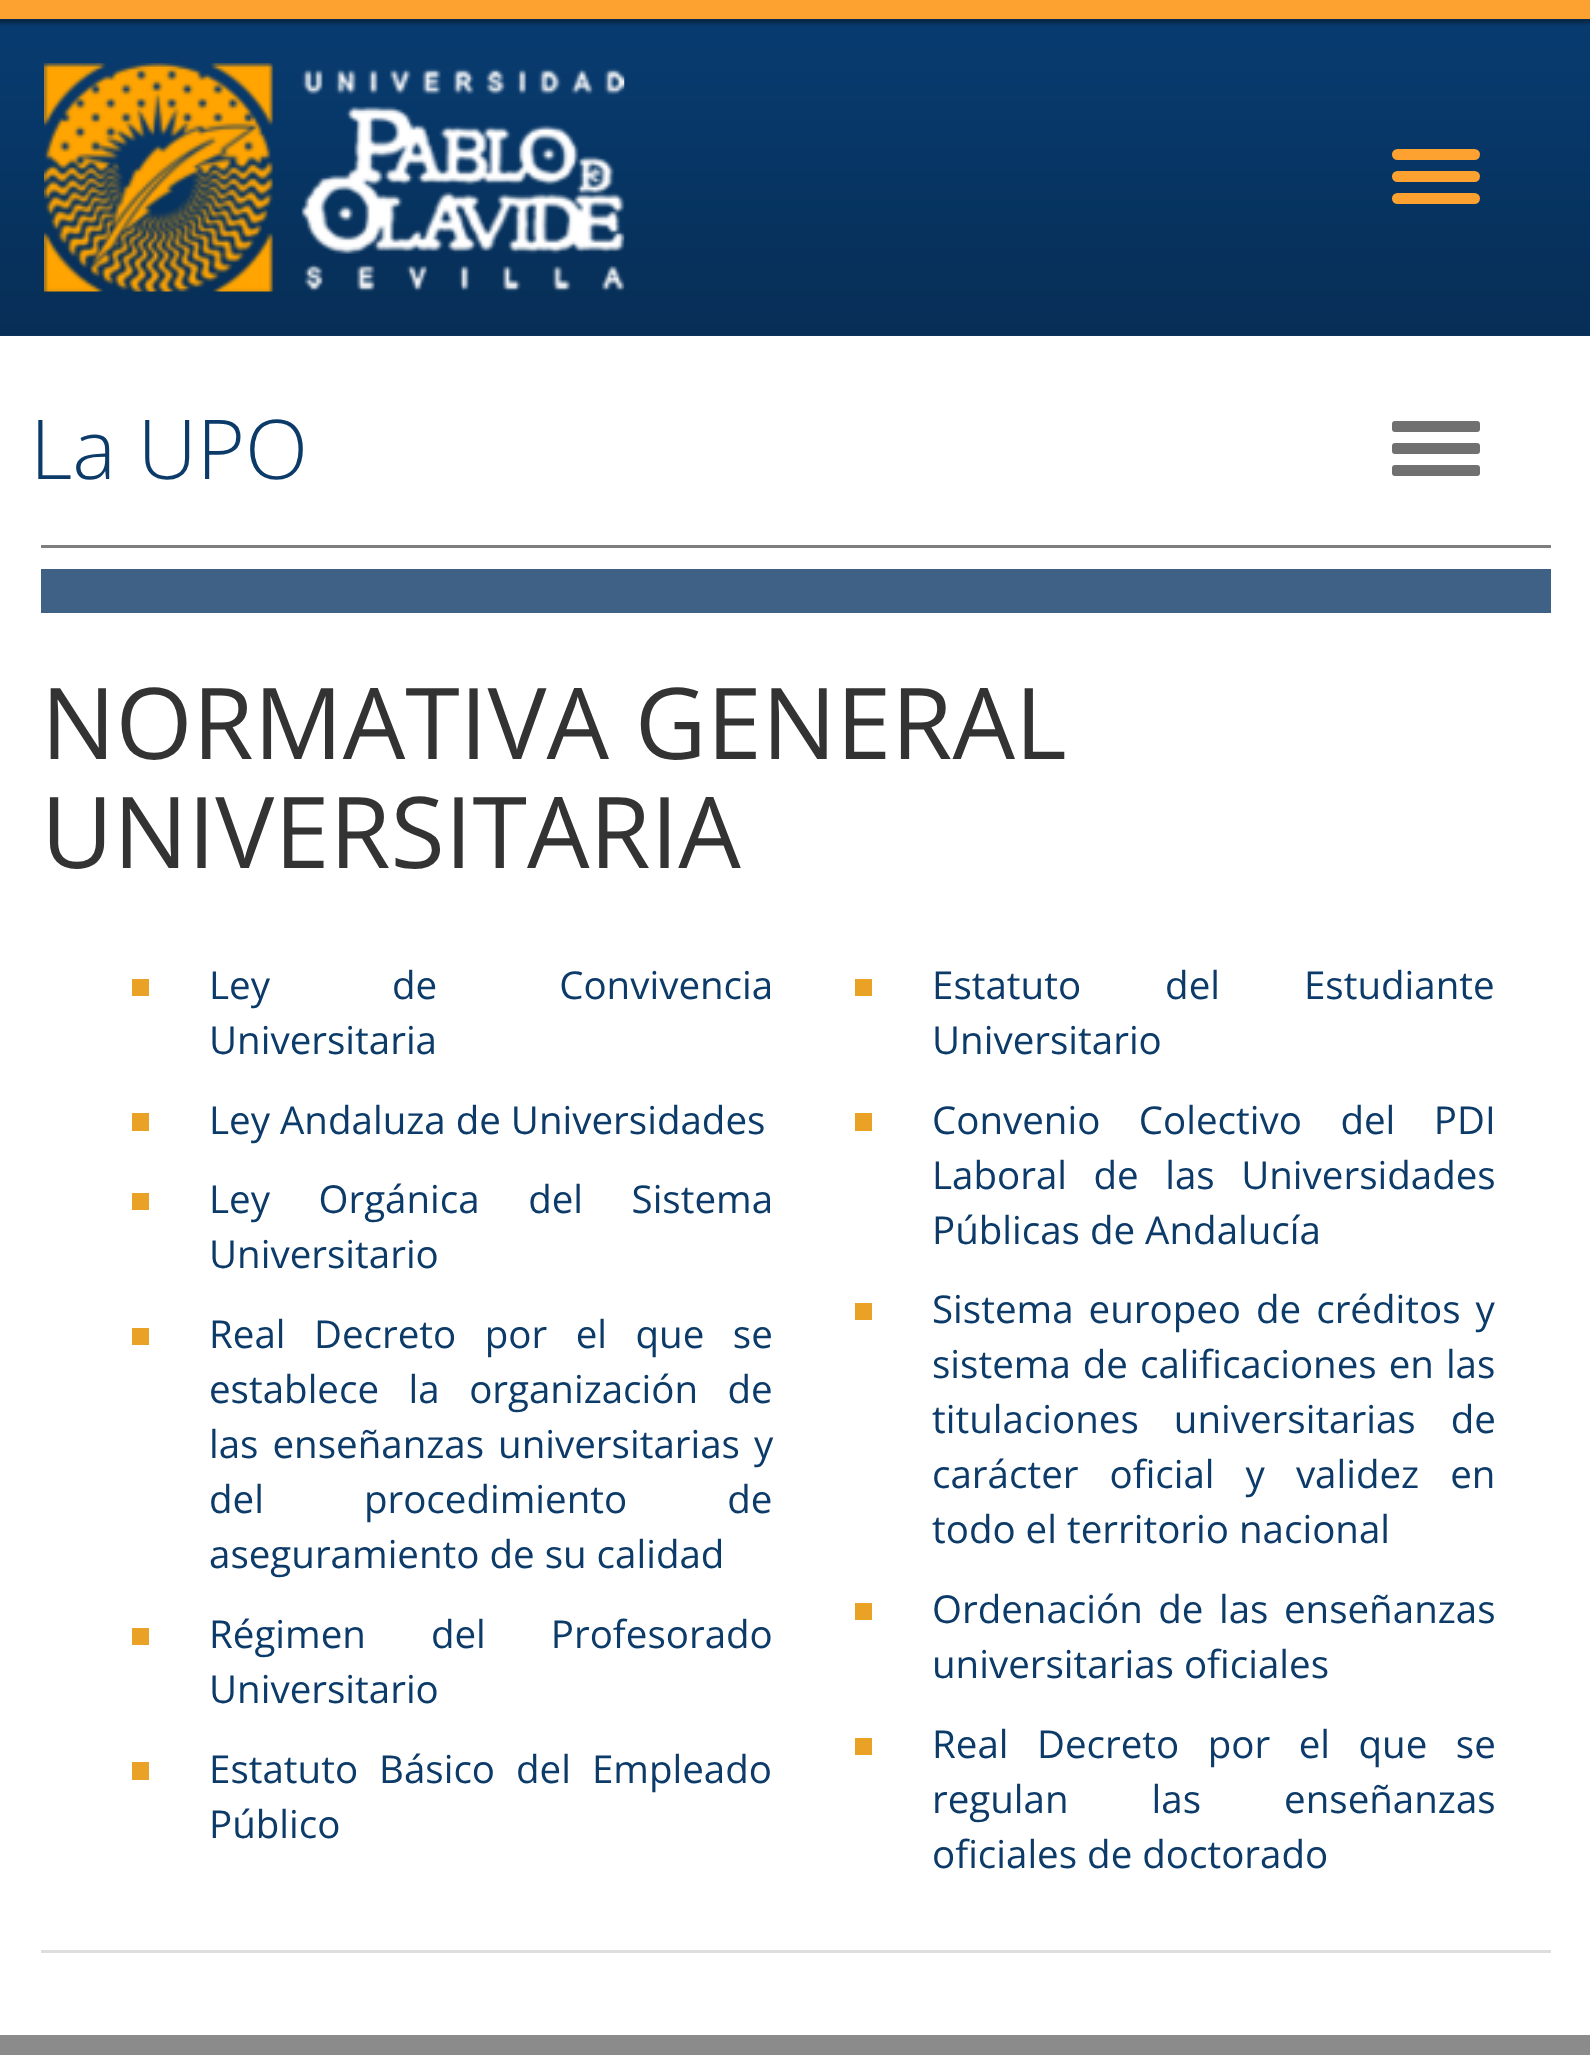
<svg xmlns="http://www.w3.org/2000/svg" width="1590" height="2055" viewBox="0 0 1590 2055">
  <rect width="100%" height="100%" fill="#ffffff"/>
  <rect x="0" y="0" width="1590" height="19" fill="#fda231"/>
  <rect x="0" y="19" width="1590" height="317" fill="#0f3966"/>
  <image x="0" y="19" width="1590" height="317" href="img1.png"/>
  <image x="44" y="63" width="581" height="229" href="img2.png"/>
  <rect x="1392" y="149" width="88" height="11" rx="5.5" fill="#fda231"/>
  <rect x="1392" y="171" width="88" height="11" rx="5.5" fill="#fda231"/>
  <rect x="1392" y="193" width="88" height="11" rx="5.5" fill="#fda231"/>
  <text x="30" y="479" font-family="Open Sans" font-size="82.5" font-weight="300" fill="#0c3b69">La UPO</text>
  <rect x="1392" y="421" width="88" height="11" rx="3" fill="#707070"/>
  <rect x="1392" y="443" width="88" height="11" rx="3" fill="#707070"/>
  <rect x="1392" y="465" width="88" height="11" rx="3" fill="#707070"/>
  <rect x="41" y="545" width="1510" height="3" fill="#7e7e7e"/>
  <rect x="41" y="569" width="1510" height="44" fill="#3f6185"/>
  <text x="41" y="759" font-family="Open Sans" font-size="99" fill="#333333">NORMATIVA GENERAL</text>
  <text x="41" y="868" font-family="Open Sans" font-size="99" fill="#333333">UNIVERSITARIA</text>
  <rect x="132" y="979" width="17" height="17" fill="#eaa226"/>
  <text x="209" y="999" word-spacing="112" font-family="Open Sans" font-size="38.5" fill="#0c3b69">Ley de Convivencia</text>
  <text x="209" y="1054" font-family="Open Sans" font-size="38.5" fill="#0c3b69">Universitaria</text>
  <rect x="132" y="1113" width="17" height="18" fill="#eaa226"/>
  <text x="209" y="1134" font-family="Open Sans" font-size="38.5" fill="#0c3b69">Ley Andaluza de Universidades</text>
  <rect x="132" y="1193" width="17" height="17" fill="#eaa226"/>
  <text x="209" y="1213" word-spacing="38.5" font-family="Open Sans" font-size="38.5" fill="#0c3b69">Ley Orgánica del Sistema</text>
  <text x="209" y="1268" font-family="Open Sans" font-size="38.5" fill="#0c3b69">Universitario</text>
  <rect x="132" y="1328" width="17" height="17" fill="#eaa226"/>
  <text x="209" y="1348" word-spacing="18.5" font-family="Open Sans" font-size="38.5" fill="#0c3b69">Real Decreto por el que se</text>
  <text x="209" y="1403" word-spacing="19.5" font-family="Open Sans" font-size="38.5" fill="#0c3b69">establece la organización de</text>
  <text x="209" y="1458" word-spacing="4" font-family="Open Sans" font-size="38.5" fill="#0c3b69">las enseñanzas universitarias y</text>
  <text x="209" y="1513" word-spacing="90" font-family="Open Sans" font-size="38.5" fill="#0c3b69">del procedimiento de</text>
  <text x="209" y="1568" font-family="Open Sans" font-size="38.5" fill="#0c3b69">aseguramiento de su calidad</text>
  <rect x="132" y="1628" width="17" height="17" fill="#eaa226"/>
  <text x="209" y="1648" word-spacing="55" font-family="Open Sans" font-size="38.5" fill="#0c3b69">Régimen del Profesorado</text>
  <text x="209" y="1703" font-family="Open Sans" font-size="38.5" fill="#0c3b69">Universitario</text>
  <rect x="132" y="1762" width="17" height="18" fill="#eaa226"/>
  <text x="209" y="1783" word-spacing="11" font-family="Open Sans" font-size="38.5" fill="#0c3b69">Estatuto Básico del Empleado</text>
  <text x="209" y="1838" font-family="Open Sans" font-size="38.5" fill="#0c3b69">Público</text>
  <rect x="855" y="979" width="17" height="17" fill="#eaa226"/>
  <text x="932" y="999" word-spacing="74" font-family="Open Sans" font-size="38.5" fill="#0c3b69">Estatuto del Estudiante</text>
  <text x="932" y="1054" font-family="Open Sans" font-size="38.5" fill="#0c3b69">Universitario</text>
  <rect x="855" y="1113" width="17" height="18" fill="#eaa226"/>
  <text x="932" y="1134" word-spacing="28.5" font-family="Open Sans" font-size="38.5" fill="#0c3b69">Convenio Colectivo del PDI</text>
  <text x="932" y="1189" word-spacing="16.5" font-family="Open Sans" font-size="38.5" fill="#0c3b69">Laboral de las Universidades</text>
  <text x="932" y="1244" font-family="Open Sans" font-size="38.5" fill="#0c3b69">Públicas de Andalucía</text>
  <rect x="855" y="1303" width="17" height="17" fill="#eaa226"/>
  <text x="932" y="1323" word-spacing="5" font-family="Open Sans" font-size="38.5" fill="#0c3b69">Sistema europeo de créditos y</text>
  <text x="932" y="1378" word-spacing="2" font-family="Open Sans" font-size="38.5" fill="#0c3b69">sistema de calificaciones en las</text>
  <text x="932" y="1433" word-spacing="25" font-family="Open Sans" font-size="38.5" fill="#0c3b69">titulaciones universitarias de</text>
  <text x="932" y="1488" word-spacing="21" font-family="Open Sans" font-size="38.5" fill="#0c3b69">carácter oficial y validez en</text>
  <text x="932" y="1543" font-family="Open Sans" font-size="38.5" fill="#0c3b69">todo el territorio nacional</text>
  <rect x="855" y="1603" width="17" height="17" fill="#eaa226"/>
  <text x="932" y="1623" word-spacing="5.5" font-family="Open Sans" font-size="38.5" fill="#0c3b69">Ordenación de las enseñanzas</text>
  <text x="932" y="1678" font-family="Open Sans" font-size="38.5" fill="#0c3b69">universitarias oficiales</text>
  <rect x="855" y="1738" width="17" height="17" fill="#eaa226"/>
  <text x="932" y="1758" word-spacing="18.5" font-family="Open Sans" font-size="38.5" fill="#0c3b69">Real Decreto por el que se</text>
  <text x="932" y="1813" word-spacing="73" font-family="Open Sans" font-size="38.5" fill="#0c3b69">regulan las enseñanzas</text>
  <text x="932" y="1868" font-family="Open Sans" font-size="38.5" fill="#0c3b69">oficiales de doctorado</text>
  <rect x="41" y="1950" width="1510" height="3" fill="#dedede"/>
  <rect x="0" y="2035" width="1590" height="20" fill="#8b8b8b"/>
</svg>
